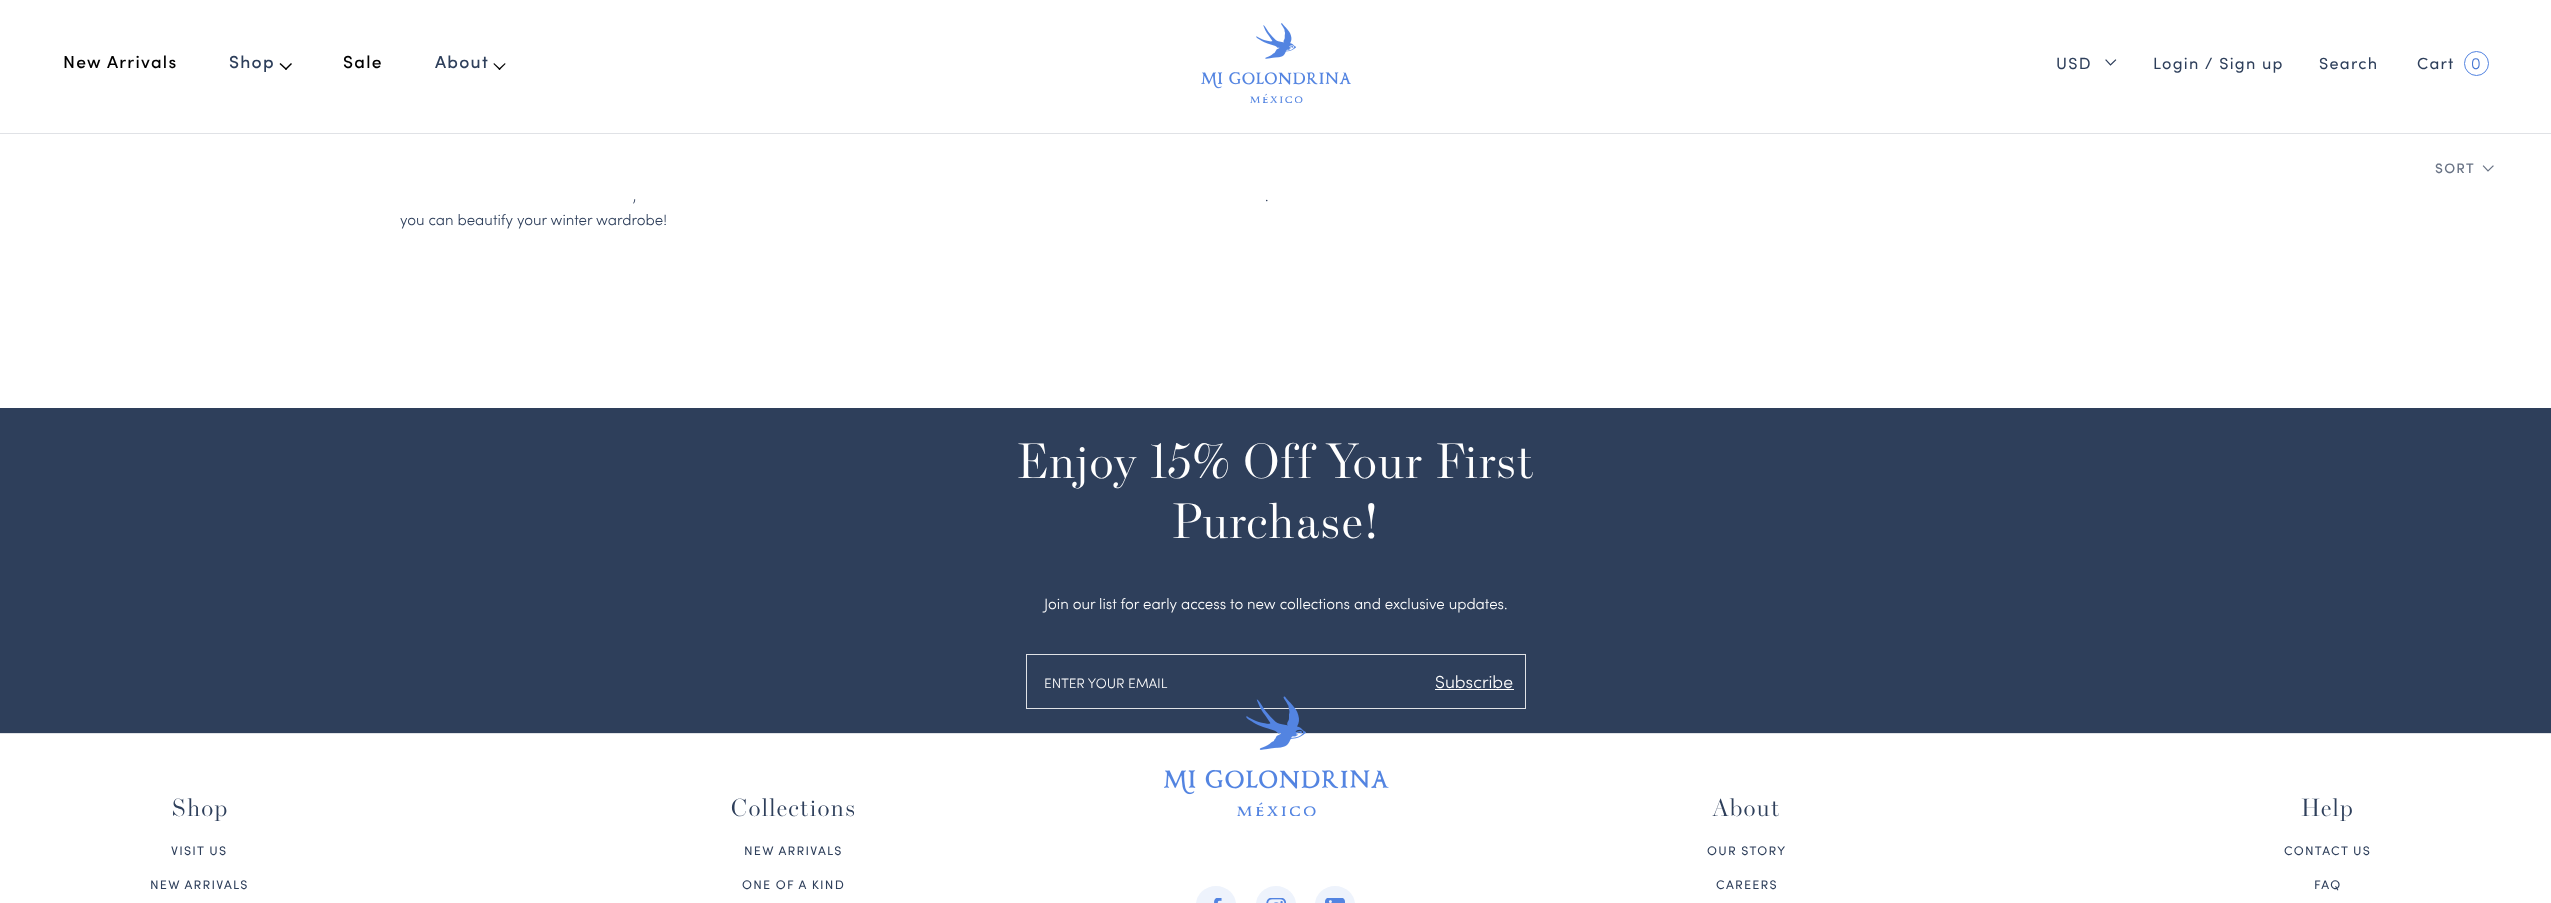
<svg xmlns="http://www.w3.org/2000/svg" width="2551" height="903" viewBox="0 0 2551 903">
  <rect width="100%" height="100%" fill="#ffffff"/>
  <rect x="0" y="133" width="2551" height="1" fill="#e0e2e6"/>
  <text x="63" y="68" font-family="Sofia" font-size="17.5" font-weight="500" letter-spacing="1.25" fill="#000000">New Arrivals</text>
  <text x="229" y="68" font-family="Sofia" font-size="17.5" font-weight="500" letter-spacing="1.25" fill="#2e3f5b">Shop</text>
  <path d="M291 63L292 64L286 70L285 69Z" fill="#000000"/>
  <path d="M280.5 63L287 69L286 70L279.5 64Z" fill="#000000"/>
  <text x="343" y="68" font-family="Sofia" font-size="17.5" font-weight="500" letter-spacing="1.25" fill="#000000">Sale</text>
  <text x="435" y="68" font-family="Sofia" font-size="17.5" font-weight="500" letter-spacing="1.25" fill="#2e3f5b">About</text>
  <path d="M505 63L505.5 64L499.5 70L498.5 69Z" fill="#000000"/>
  <path d="M494 63L500.5 69L499.5 70L493.5 64Z" fill="#000000"/>
  <image x="1201" y="23" width="150" height="80" href="img1.png"/>
  <text x="2056" y="69" font-family="Sofia" font-size="16.25" letter-spacing="1.25" fill="#2e3f5b">USD</text>
  <path d="M2115.5 60L2110.5 65L2106 60" fill="none" stroke="#2e3f5b" stroke-width="1.2" stroke-linecap="square"/>
  <text x="2153" y="69" font-family="Sofia" font-size="16.25" letter-spacing="1.25" fill="#2e3f5b">Login / Sign up</text>
  <text x="2319" y="69" font-family="Sofia" font-size="16.25" letter-spacing="1.25" fill="#2e3f5b">Search</text>
  <text x="2417" y="69" font-family="Sofia" font-size="16.25" letter-spacing="1.25" fill="#2e3f5b">Cart</text>
  <circle cx="2476.5" cy="63.5" r="12" fill="none" stroke="#5384e1"/>
  <text x="2471" y="69" font-family="Sofia" font-size="16.25" font-weight="300" letter-spacing="1.25" fill="#4173d1">0</text>
  <text x="2435" y="173" font-family="Sofia" font-size="13.75" font-weight="500" letter-spacing="1.25" fill="#697385">SORT</text>
  <path d="M2493 166L2488 171L2483.5 166" fill="none" stroke="#697385" stroke-width="1.2" stroke-linecap="square"/>
  <text x="633" y="201" font-family="Sofia" font-size="15" font-weight="300" fill="#2e3f5b">,</text>
  <text x="1265" y="201" font-family="Sofia" font-size="15" font-weight="300" fill="#2e3f5b">.</text>
  <text x="400" y="225" font-family="Sofia" font-size="15" font-weight="300" fill="#2e3f5b">you can beautify your winter wardrobe!</text>
  <rect x="0" y="408" width="2551" height="325" fill="#2e3f5b"/>
  <text x="1017" y="478" font-family="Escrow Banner" font-size="50" font-weight="300" letter-spacing="1.25" fill="#ffffff">Enjoy 15% Off Your First</text>
  <text x="1172" y="538" font-family="Escrow Banner" font-size="50" font-weight="300" letter-spacing="1.25" fill="#ffffff">Purchase!</text>
  <text x="1044" y="609" font-family="Sofia" font-size="15" font-weight="300" fill="#ffffff">Join our list for early access to new collections and exclusive updates.</text>
  <rect x="1026.5" y="654.5" width="499" height="54" fill="none" stroke="#e0e2e6"/>
  <text x="1044" y="688" font-family="Sofia" font-size="13.75" font-weight="300" fill="#ffffff">ENTER YOUR EMAIL</text>
  <text x="1435" y="688" font-family="Sofia" font-size="17.5" font-weight="300" fill="#ffffff">Subscribe</text>
  <rect x="1435" y="689" width="79" height="1" fill="#ffffff"/>
  <rect x="0" y="733" width="2551" height="1" fill="#e0e2e6"/>
  <text x="171" y="816" font-family="Escrow Banner" font-size="25" font-weight="300" letter-spacing="1.25" fill="#2e3f5b">Shop</text>
  <text x="171" y="855" font-family="Sofia" font-size="12.5" letter-spacing="1.25" fill="#2e3f5b">VISIT US</text>
  <text x="150" y="889" font-family="Sofia" font-size="12.5" letter-spacing="1.25" fill="#2e3f5b">NEW ARRIVALS</text>
  <text x="731" y="816" font-family="Escrow Banner" font-size="25" font-weight="300" letter-spacing="1.25" fill="#2e3f5b">Collections</text>
  <text x="744" y="855" font-family="Sofia" font-size="12.5" letter-spacing="1.25" fill="#2e3f5b">NEW ARRIVALS</text>
  <text x="742" y="889" font-family="Sofia" font-size="12.5" letter-spacing="1.25" fill="#2e3f5b">ONE OF A KIND</text>
  <image x="1164" y="696" width="225" height="120" href="img2.png"/>
  <rect x="1196" y="886" width="40" height="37" rx="20" fill="#eef3fc"/>
  <image x="1214" y="898" width="8" height="5" href="img3.png"/>
  <rect x="1256" y="886" width="40" height="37" rx="20" fill="#eef3fc"/>
  <image x="1266" y="898" width="20" height="5" href="img4.png"/>
  <rect x="1315" y="886" width="40" height="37" rx="20" fill="#eef3fc"/>
  <image x="1325" y="898" width="20" height="5" href="img5.png"/>
  <text x="1712" y="816" font-family="Escrow Banner" font-size="25" font-weight="300" letter-spacing="1.25" fill="#2e3f5b">About</text>
  <text x="1707" y="855" font-family="Sofia" font-size="12.5" letter-spacing="1.25" fill="#2e3f5b">OUR STORY</text>
  <text x="1716" y="889" font-family="Sofia" font-size="12.5" letter-spacing="1.25" fill="#2e3f5b">CAREERS</text>
  <text x="2301" y="816" font-family="Escrow Banner" font-size="25" font-weight="300" letter-spacing="1.25" fill="#2e3f5b">Help</text>
  <text x="2284" y="855" font-family="Sofia" font-size="12.5" letter-spacing="1.25" fill="#2e3f5b">CONTACT US</text>
  <text x="2314" y="889" font-family="Sofia" font-size="12.5" letter-spacing="1.25" fill="#2e3f5b">FAQ</text>
</svg>
